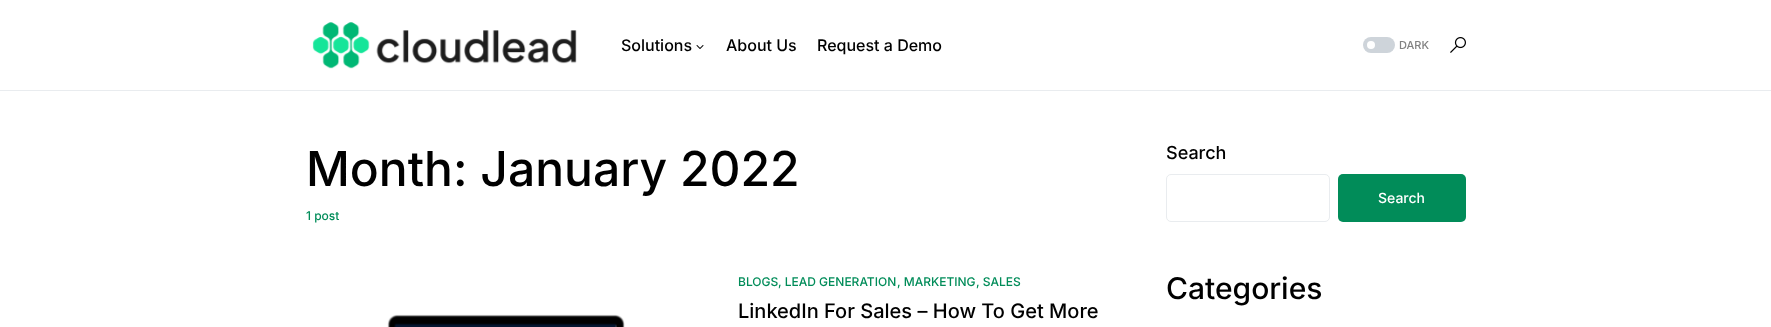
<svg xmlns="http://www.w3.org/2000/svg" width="1771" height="327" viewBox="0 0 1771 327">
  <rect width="100%" height="100%" fill="#ffffff"/>
  <rect x="0" y="90" width="1771" height="1" fill="#e9ecef"/>
  <image x="312" y="22" width="265" height="47" href="img1.png"/>
  <text x="621" y="51" font-family="Inter" font-size="16" font-weight="500" fill="#000000">Solutions</text>
  <image x="696" y="45" width="8" height="4" href="img2.png"/>
  <text x="726" y="51" font-family="Inter" font-size="16" font-weight="500" fill="#000000">About Us</text>
  <text x="817" y="51" font-family="Inter" font-size="16" font-weight="500" fill="#000000">Request a Demo</text>
  <rect x="1363" y="37" width="32" height="16" rx="8" fill="#ced4da"/>
  <circle cx="1371" cy="45" r="4" fill="#ffffff"/>
  <text x="1399" y="49" font-family="Inter" font-size="11" font-weight="500" fill="#818181">DARK</text>
  <image x="1450" y="37" width="16" height="16" href="img3.png"/>
  <text x="306" y="186" font-family="Inter" font-size="48" font-weight="500" fill="#000000">Month: January 2022</text>
  <text x="306" y="220" font-family="Inter" font-size="12" font-weight="500" fill="#018c59">1 post</text>
  <text x="738" y="286" font-family="Inter" font-size="12" font-weight="500" fill="#018c59">BLOGS</text>
  <text x="778" y="286" font-family="Inter" font-size="12" font-weight="500" fill="#018c59">, LEAD GENERATION</text>
  <text x="897" y="286" font-family="Inter" font-size="12" font-weight="500" fill="#018c59">, MARKETING</text>
  <text x="976" y="286" font-family="Inter" font-size="12" font-weight="500" fill="#018c59">, SALES</text>
  <text x="738" y="318" font-family="Inter" font-size="20" font-weight="500" fill="#000000">LinkedIn For Sales – How To Get More</text>
  <image x="387" y="314" width="238" height="13" href="img4.png"/>
  <text x="1166" y="159" font-family="Inter" font-size="18" font-weight="500" fill="#000000">Search</text>
  <rect x="1166.5" y="174.5" width="163" height="47" rx="4.5" fill="none" stroke="#e9ecef"/>
  <rect x="1338" y="174" width="128" height="48" rx="5" fill="#018c59"/>
  <text x="1378" y="203" font-family="Inter" font-size="14" font-weight="500" fill="#ffffff">Search</text>
  <text x="1166" y="299" font-family="Inter" font-size="30" font-weight="500" fill="#000000">Categories</text>
</svg>
